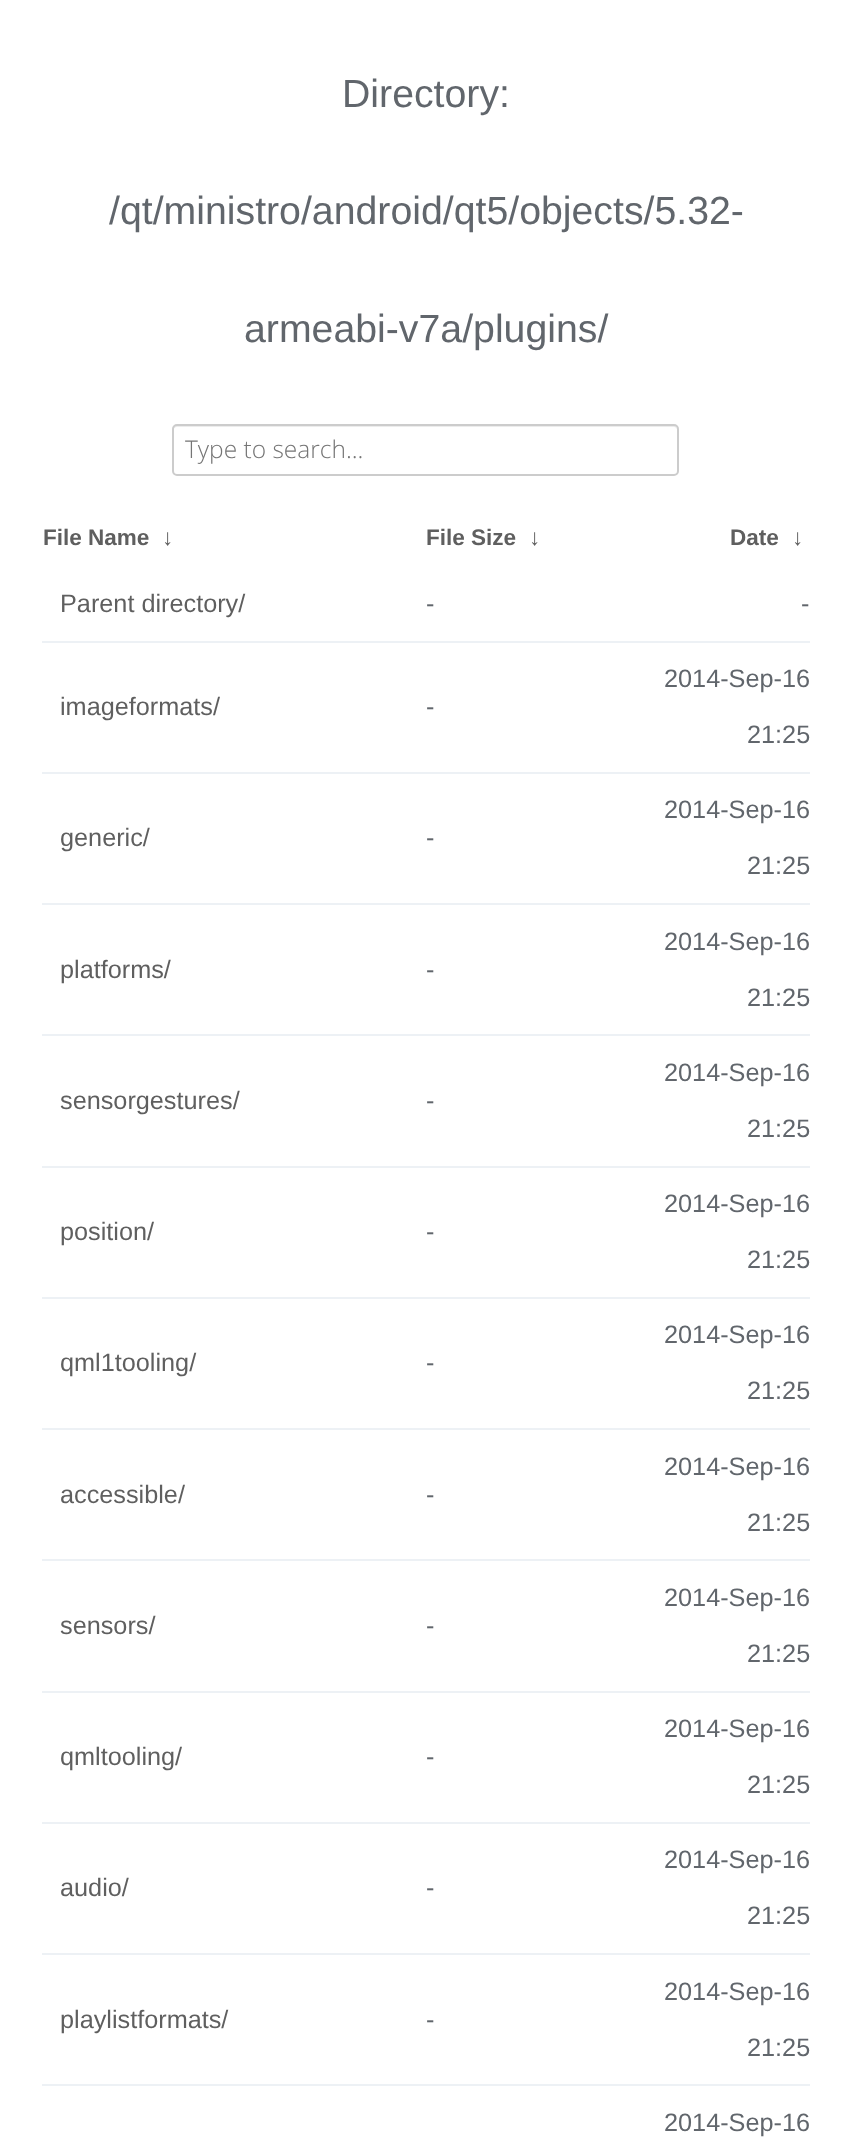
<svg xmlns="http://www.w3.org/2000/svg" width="851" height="2151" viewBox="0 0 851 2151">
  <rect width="100%" height="100%" fill="#ffffff"/>
  <text x="342" y="107" font-family="Liberation Sans" font-size="39.25" fill="#61666c">Directory:</text>
  <text x="109" y="224" font-family="Liberation Sans" font-size="39.25" fill="#61666c">/qt/ministro/android/qt5/objects/5.32-</text>
  <text x="244" y="342" font-family="Liberation Sans" font-size="39.25" fill="#61666c">armeabi-v7a/plugins/</text>
  <path d="M177 427H674C676 427 677 429 677 430C677 427 676 425 673 425H177C174 425 173 427 173 430C173 429 175 427 177 427Z" fill="#ececec"/>
  <rect x="173" y="425" width="505" height="50" rx="4" fill="none" stroke="#cccccc" stroke-width="2"/>
  <text x="185" y="458" font-family="Open Sans" font-size="24.5" font-weight="300" fill="#757575">Type to search...</text>
  <text x="43" y="545" font-family="Liberation Sans" font-size="22.5" font-weight="bold" fill="#5f5f5f">File Name</text>
  <text x="162" y="545" font-family="Liberation Sans" font-size="22.5" font-weight="bold" fill="#5f5f5f">↓</text>
  <text x="426" y="545" font-family="Liberation Sans" font-size="22.5" font-weight="bold" fill="#5f5f5f">File Size</text>
  <text x="529" y="545" font-family="Liberation Sans" font-size="22.5" font-weight="bold" fill="#5f5f5f">↓</text>
  <text x="730" y="545" font-family="Liberation Sans" font-size="22.5" font-weight="bold" fill="#5f5f5f">Date</text>
  <text x="792" y="545" font-family="Liberation Sans" font-size="22.5" font-weight="bold" fill="#5f5f5f">↓</text>
  <text x="60" y="612" font-family="Liberation Sans" font-size="25.25" fill="#5f5f5f">Parent directory/</text>
  <text x="426" y="612" font-family="Liberation Sans" font-size="25.25" fill="#61666c">-</text>
  <rect x="42" y="641" width="768" height="2" fill="#edf1f5"/>
  <text x="801" y="612" font-family="Liberation Sans" font-size="25.25" fill="#61666c">-</text>
  <text x="60" y="715" font-family="Liberation Sans" font-size="25.25" fill="#5f5f5f">imageformats/</text>
  <text x="426" y="715" font-family="Liberation Sans" font-size="25.25" fill="#61666c">-</text>
  <rect x="42" y="772" width="768" height="2" fill="#edf1f5"/>
  <text x="664" y="687" font-family="Liberation Sans" font-size="25.25" fill="#61666c">2014-Sep-16</text>
  <text x="747" y="743" font-family="Liberation Sans" font-size="25.25" fill="#61666c">21:25</text>
  <text x="60" y="846" font-family="Liberation Sans" font-size="25.25" fill="#5f5f5f">generic/</text>
  <text x="426" y="846" font-family="Liberation Sans" font-size="25.25" fill="#61666c">-</text>
  <rect x="42" y="903" width="768" height="2" fill="#edf1f5"/>
  <text x="664" y="818" font-family="Liberation Sans" font-size="25.25" fill="#61666c">2014-Sep-16</text>
  <text x="747" y="874" font-family="Liberation Sans" font-size="25.25" fill="#61666c">21:25</text>
  <text x="60" y="978" font-family="Liberation Sans" font-size="25.25" fill="#5f5f5f">platforms/</text>
  <text x="426" y="978" font-family="Liberation Sans" font-size="25.25" fill="#61666c">-</text>
  <rect x="42" y="1034" width="768" height="2" fill="#edf1f5"/>
  <text x="664" y="950" font-family="Liberation Sans" font-size="25.25" fill="#61666c">2014-Sep-16</text>
  <text x="747" y="1006" font-family="Liberation Sans" font-size="25.25" fill="#61666c">21:25</text>
  <text x="60" y="1109" font-family="Liberation Sans" font-size="25.25" fill="#5f5f5f">sensorgestures/</text>
  <text x="426" y="1109" font-family="Liberation Sans" font-size="25.25" fill="#61666c">-</text>
  <rect x="42" y="1166" width="768" height="2" fill="#edf1f5"/>
  <text x="664" y="1081" font-family="Liberation Sans" font-size="25.25" fill="#61666c">2014-Sep-16</text>
  <text x="747" y="1137" font-family="Liberation Sans" font-size="25.25" fill="#61666c">21:25</text>
  <text x="60" y="1240" font-family="Liberation Sans" font-size="25.25" fill="#5f5f5f">position/</text>
  <text x="426" y="1240" font-family="Liberation Sans" font-size="25.25" fill="#61666c">-</text>
  <rect x="42" y="1297" width="768" height="2" fill="#edf1f5"/>
  <text x="664" y="1212" font-family="Liberation Sans" font-size="25.25" fill="#61666c">2014-Sep-16</text>
  <text x="747" y="1268" font-family="Liberation Sans" font-size="25.25" fill="#61666c">21:25</text>
  <text x="60" y="1371" font-family="Liberation Sans" font-size="25.25" fill="#5f5f5f">qml1tooling/</text>
  <text x="426" y="1371" font-family="Liberation Sans" font-size="25.25" fill="#61666c">-</text>
  <rect x="42" y="1428" width="768" height="2" fill="#edf1f5"/>
  <text x="664" y="1343" font-family="Liberation Sans" font-size="25.25" fill="#61666c">2014-Sep-16</text>
  <text x="747" y="1399" font-family="Liberation Sans" font-size="25.25" fill="#61666c">21:25</text>
  <text x="60" y="1503" font-family="Liberation Sans" font-size="25.25" fill="#5f5f5f">accessible/</text>
  <text x="426" y="1503" font-family="Liberation Sans" font-size="25.25" fill="#61666c">-</text>
  <rect x="42" y="1559" width="768" height="2" fill="#edf1f5"/>
  <text x="664" y="1475" font-family="Liberation Sans" font-size="25.25" fill="#61666c">2014-Sep-16</text>
  <text x="747" y="1531" font-family="Liberation Sans" font-size="25.25" fill="#61666c">21:25</text>
  <text x="60" y="1634" font-family="Liberation Sans" font-size="25.25" fill="#5f5f5f">sensors/</text>
  <text x="426" y="1634" font-family="Liberation Sans" font-size="25.25" fill="#61666c">-</text>
  <rect x="42" y="1691" width="768" height="2" fill="#edf1f5"/>
  <text x="664" y="1606" font-family="Liberation Sans" font-size="25.25" fill="#61666c">2014-Sep-16</text>
  <text x="747" y="1662" font-family="Liberation Sans" font-size="25.25" fill="#61666c">21:25</text>
  <text x="60" y="1765" font-family="Liberation Sans" font-size="25.25" fill="#5f5f5f">qmltooling/</text>
  <text x="426" y="1765" font-family="Liberation Sans" font-size="25.25" fill="#61666c">-</text>
  <rect x="42" y="1822" width="768" height="2" fill="#edf1f5"/>
  <text x="664" y="1737" font-family="Liberation Sans" font-size="25.25" fill="#61666c">2014-Sep-16</text>
  <text x="747" y="1793" font-family="Liberation Sans" font-size="25.25" fill="#61666c">21:25</text>
  <text x="60" y="1896" font-family="Liberation Sans" font-size="25.25" fill="#5f5f5f">audio/</text>
  <text x="426" y="1896" font-family="Liberation Sans" font-size="25.25" fill="#61666c">-</text>
  <rect x="42" y="1953" width="768" height="2" fill="#edf1f5"/>
  <text x="664" y="1868" font-family="Liberation Sans" font-size="25.25" fill="#61666c">2014-Sep-16</text>
  <text x="747" y="1924" font-family="Liberation Sans" font-size="25.25" fill="#61666c">21:25</text>
  <text x="60" y="2028" font-family="Liberation Sans" font-size="25.25" fill="#5f5f5f">playlistformats/</text>
  <text x="426" y="2028" font-family="Liberation Sans" font-size="25.25" fill="#61666c">-</text>
  <rect x="42" y="2084" width="768" height="2" fill="#edf1f5"/>
  <text x="664" y="2000" font-family="Liberation Sans" font-size="25.25" fill="#61666c">2014-Sep-16</text>
  <text x="747" y="2056" font-family="Liberation Sans" font-size="25.25" fill="#61666c">21:25</text>
  <text x="664" y="2131" font-family="Liberation Sans" font-size="25.25" fill="#61666c">2014-Sep-16</text>
</svg>
